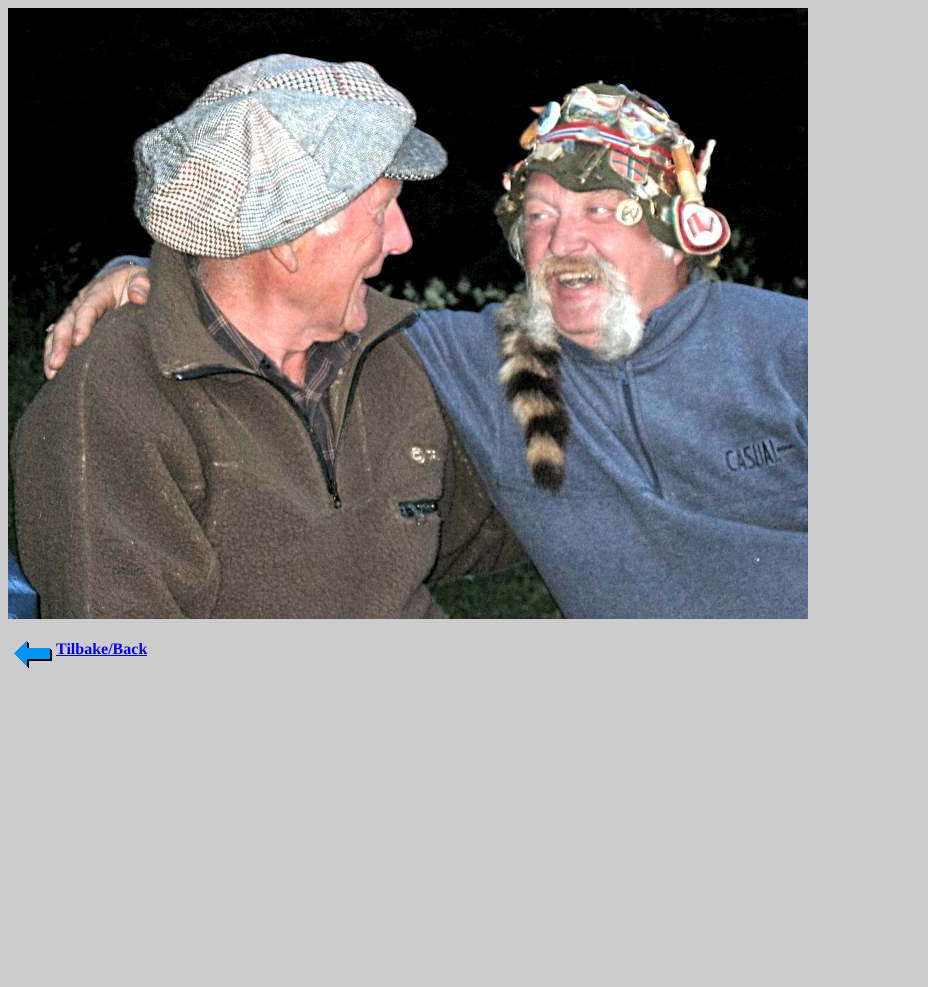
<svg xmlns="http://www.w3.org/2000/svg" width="928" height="987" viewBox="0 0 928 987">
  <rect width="100%" height="100%" fill="#cccccc"/>
  <image x="8" y="8" width="800" height="611" href="img1.png"/>
  <image x="14" y="641" width="38" height="27" href="img2.png"/>
  <text x="56" y="654" font-family="Liberation Serif" font-size="16" font-weight="bold" fill="#0000ee">Tilbake/Back</text>
  <rect x="56" y="655" width="91" height="1" fill="#0000ee"/>
</svg>
